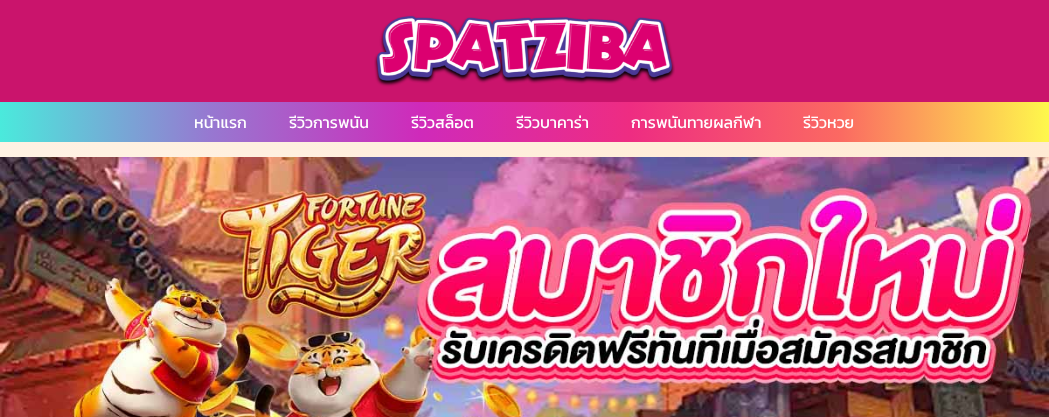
<svg xmlns="http://www.w3.org/2000/svg" width="1049" height="417" viewBox="0 0 1049 417">
  <defs>
    <linearGradient id="g1" gradientUnits="userSpaceOnUse" x1="0" y1="122" x2="1049" y2="122"><stop offset="0" stop-color="#4aeadc"/><stop offset="0.2" stop-color="#9778d1"/><stop offset="0.4" stop-color="#cf2aba"/><stop offset="0.6" stop-color="#ee2c82"/><stop offset="0.8" stop-color="#fb6962"/><stop offset="1" stop-color="#fef84c"/></linearGradient>
    <linearGradient id="g2" gradientUnits="userSpaceOnUse" x1="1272" y1="329" x2="-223" y2="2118"><stop offset="0" stop-color="#ffead3"/><stop offset="0.77" stop-color="#ffffff"/></linearGradient>
  </defs>
  <rect width="100%" height="100%" fill="#ca146c"/>
  <image x="374" y="15" width="301" height="72" href="img1.png"/>
  <rect x="0" y="102" width="1049" height="40" fill="url(#g1)"/>
  <text x="194" y="128" font-family="Kanit" font-size="16" fill="#ffffff">หน้าแรก</text>
  <text x="289" y="128" font-family="Kanit" font-size="16" fill="#ffffff">รีวิวการพนัน</text>
  <text x="411" y="128" font-family="Kanit" font-size="16" fill="#ffffff">รีวิวสล็อต</text>
  <text x="516" y="128" font-family="Kanit" font-size="16" fill="#ffffff">รีวิวบาคาร่า</text>
  <text x="631" y="128" font-family="Kanit" font-size="16" fill="#ffffff">การพนันทายผลกีฬา</text>
  <text x="803" y="128" font-family="Kanit" font-size="16" fill="#ffffff">รีวิวหวย</text>
  <rect x="0" y="142" width="1049" height="15" fill="url(#g2)"/>
  <image x="0" y="157" width="1049" height="260" href="img2.png"/>
</svg>
